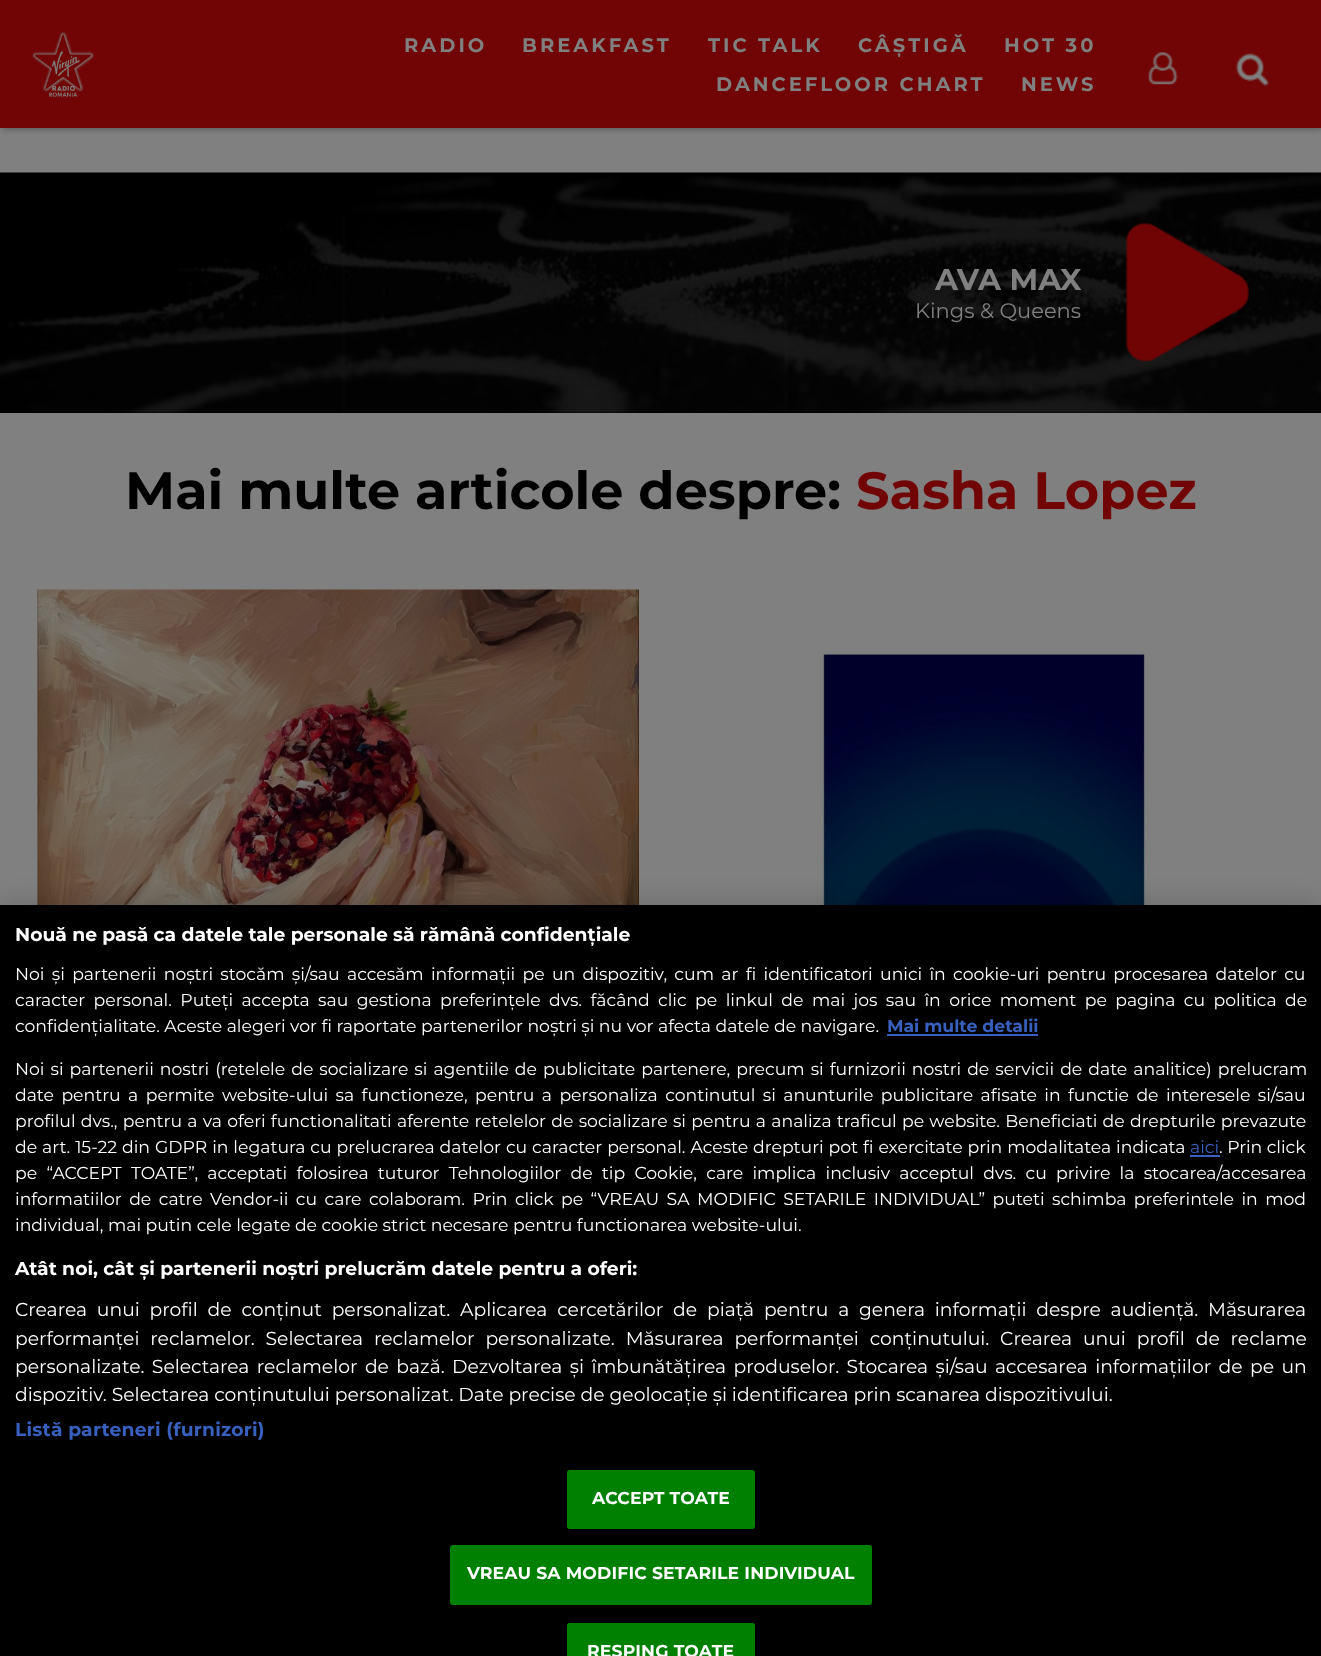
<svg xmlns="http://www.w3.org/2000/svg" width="1321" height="1656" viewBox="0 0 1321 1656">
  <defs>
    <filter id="blur1" x="-50%" y="-200%" width="200%" height="500%"><feGaussianBlur stdDeviation="3"/></filter>
    <filter id="blur2" x="-50%" y="-200%" width="200%" height="500%"><feGaussianBlur stdDeviation="13.5"/></filter>
  </defs>
  <rect width="100%" height="100%" fill="#808080"/>
  <rect x="2" y="2" width="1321" height="127" fill="#000000" fill-opacity="0.35" filter="url(#blur1)"/>
  <rect x="0" y="0" width="1321" height="128" fill="#710505"/>
  <image x="32" y="31" width="63" height="66" href="img1.png"/>
  <text x="404" y="52" font-family="Montserrat" font-size="19.5" font-weight="bold" letter-spacing="3" fill="#808080">RADIO</text>
  <text x="522" y="52" font-family="Montserrat" font-size="19.5" font-weight="bold" letter-spacing="3" fill="#808080">BREAKFAST</text>
  <text x="708" y="52" font-family="Montserrat" font-size="19.5" font-weight="bold" letter-spacing="3" fill="#808080">TIC TALK</text>
  <text x="858" y="52" font-family="Montserrat" font-size="19.5" font-weight="bold" letter-spacing="3" fill="#808080">CÂȘTIGĂ</text>
  <text x="1004" y="52" font-family="Montserrat" font-size="19.5" font-weight="bold" letter-spacing="3" fill="#808080">HOT 30</text>
  <text x="716" y="91" font-family="Montserrat" font-size="19.5" font-weight="bold" letter-spacing="3" fill="#808080">DANCEFLOOR CHART</text>
  <text x="1021" y="91" font-family="Montserrat" font-size="19.5" font-weight="bold" letter-spacing="3" fill="#808080">NEWS</text>
  <image x="1148" y="52" width="31" height="33" href="img2.png"/>
  <image x="1235" y="53" width="35" height="33" href="img3.png"/>
  <rect x="0" y="412" width="1321" height="1" fill="#000000"/>
  <image x="0" y="172" width="1321" height="241" href="img4.png"/>
  <text x="935" y="290" font-family="Montserrat" font-size="30" font-weight="bold" fill="#808080">AVA MAX</text>
  <text x="915" y="318" font-family="Montserrat" font-size="21" fill="#808080">Kings &amp; Queens</text>
  <image x="1125" y="223" width="124" height="139" href="img5.png"/>
  <text x="125" y="509" font-family="Montserrat" font-size="52.5" font-weight="bold" fill="#000000">Mai multe articole despre:</text>
  <text x="856" y="509" font-family="Montserrat" font-size="52.5" font-weight="bold" fill="#710505">Sasha Lopez</text>
  <image x="37" y="589" width="602" height="316" href="img6.png"/>
  <image x="816" y="649" width="336" height="256" href="img7.png"/>
  <rect x="0" y="905" width="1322" height="751" fill="#000000" fill-opacity="0.2" filter="url(#blur2)"/>
  <rect x="0" y="905" width="1321" height="751" fill="#000000"/>
  <text x="15" y="941" font-family="Montserrat" font-size="18.75" font-weight="bold" fill="#ffffff">Nouă ne pasă ca datele tale personale să rămână confidențiale</text>
  <text x="15" y="980" word-spacing="2.8" font-family="Montserrat" font-size="17.25" fill="#ffffff">Noi și partenerii noștri stocăm și/sau accesăm informații pe un dispozitiv, cum ar fi identificatori unici în cookie-uri pentru procesarea datelor cu</text>
  <text x="15" y="1006" word-spacing="3.9" font-family="Montserrat" font-size="17.25" fill="#ffffff">caracter personal. Puteți accepta sau gestiona preferințele dvs. făcând clic pe linkul de mai jos sau în orice moment pe pagina cu politica de</text>
  <text x="15" y="1032" font-family="Montserrat" font-size="17.25" fill="#ffffff">confidențialitate. Aceste alegeri vor fi raportate partenerilor noștri și nu vor afecta datele de navigare.</text>
  <text x="887" y="1032" font-family="Montserrat" font-size="17.25" font-weight="bold" fill="#3860be">Mai multe detalii</text>
  <rect x="887" y="1034" width="151" height="2" fill="#3860be"/>
  <text x="15" y="1075" word-spacing="1.5" font-family="Montserrat" font-size="17.25" fill="#ffffff">Noi si partenerii nostri (retelele de socializare si agentiile de publicitate partenere, precum si furnizorii nostri de servicii de date analitice) prelucram</text>
  <text x="15" y="1101" word-spacing="2.9" font-family="Montserrat" font-size="17.25" fill="#ffffff">date pentru a permite website-ului sa functioneze, pentru a personaliza continutul si anunturile publicitare afisate in functie de interesele si/sau</text>
  <text x="15" y="1127" word-spacing="0.75" font-family="Montserrat" font-size="17.25" fill="#ffffff">profilul dvs., pentru a va oferi functionalitati aferente retelelor de socializare si pentru a analiza traficul pe website. Beneficiati de drepturile prevazute</text>
  <text x="15" y="1153" word-spacing="0.4" font-family="Montserrat" font-size="17.25" fill="#ffffff">de art. 15-22 din GDPR in legatura cu prelucrarea datelor cu caracter personal. Aceste drepturi pot fi exercitate prin modalitatea indicata</text>
  <text x="1190" y="1153" font-family="Montserrat" font-size="17.25" fill="#3860be">aici</text>
  <rect x="1190" y="1155" width="30" height="2" fill="#3860be"/>
  <text x="1219" y="1153" font-family="Montserrat" font-size="17.25" fill="#ffffff">. Prin click</text>
  <text x="15" y="1179" word-spacing="4.75" font-family="Montserrat" font-size="17.25" fill="#ffffff">pe “ACCEPT TOATE”, acceptati folosirea tuturor Tehnologiilor de tip Cookie, care implica inclusiv acceptul dvs. cu privire la stocarea/accesarea</text>
  <text x="15" y="1205" word-spacing="2.9" font-family="Montserrat" font-size="17.25" fill="#ffffff">informatiilor de catre Vendor-ii cu care colaboram. Prin click pe “VREAU SA MODIFIC SETARILE INDIVIDUAL” puteti schimba preferintele in mod</text>
  <text x="15" y="1231" font-family="Montserrat" font-size="17.25" fill="#ffffff">individual, mai putin cele legate de cookie strict necesare pentru functionarea website-ului.</text>
  <text x="15" y="1275" font-family="Montserrat" font-size="18.75" font-weight="bold" fill="#ffffff">Atât noi, cât și partenerii noștri prelucrăm datele pentru a oferi:</text>
  <text x="15" y="1316" word-spacing="4.9" font-family="Montserrat" font-size="18.75" fill="#ffffff">Crearea unui profil de conținut personalizat. Aplicarea cercetărilor de piață pentru a genera informații despre audiență. Măsurarea</text>
  <text x="15" y="1345" word-spacing="5.9" font-family="Montserrat" font-size="18.75" fill="#ffffff">performanței reclamelor. Selectarea reclamelor personalizate. Măsurarea performanței conținutului. Crearea unui profil de reclame</text>
  <text x="15" y="1373" word-spacing="2.5" font-family="Montserrat" font-size="18.75" fill="#ffffff">personalizate. Selectarea reclamelor de bază. Dezvoltarea și îmbunătățirea produselor. Stocarea și/sau accesarea informațiilor de pe un</text>
  <text x="15" y="1401" font-family="Montserrat" font-size="18.75" fill="#ffffff">dispozitiv. Selectarea conținutului personalizat. Date precise de geolocație și identificarea prin scanarea dispozitivului.</text>
  <text x="15" y="1436" font-family="Montserrat" font-size="18.75" font-weight="bold" letter-spacing="0.2" fill="#3860be">Listă parteneri (furnizori)</text>
  <rect x="568" y="1471" width="186" height="57" rx="2" fill="#008000" stroke="#008000" stroke-width="2"/>
  <text x="592" y="1504" font-family="Montserrat" font-size="17.25" font-weight="bold" letter-spacing="0.15" fill="#ffffff">ACCEPT TOATE</text>
  <rect x="451" y="1546" width="420" height="58" rx="2" fill="#008000" stroke="#008000" stroke-width="2"/>
  <text x="467" y="1579" font-family="Montserrat" font-size="17.25" font-weight="bold" letter-spacing="0.15" fill="#ffffff">VREAU SA MODIFIC SETARILE INDIVIDUAL</text>
  <path d="M570 1623H752C753.5 1623 755 1624.5 755 1626V1656H567V1626C567 1624.5 568.5 1623 570 1623Z" fill="#008000"/>
  <rect x="568" y="1624" width="186" height="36" rx="2" fill="none" stroke="#008000" stroke-width="2"/>
  <text x="587" y="1657" font-family="Montserrat" font-size="17.25" font-weight="bold" letter-spacing="0.15" fill="#ffffff">RESPING TOATE</text>
</svg>
